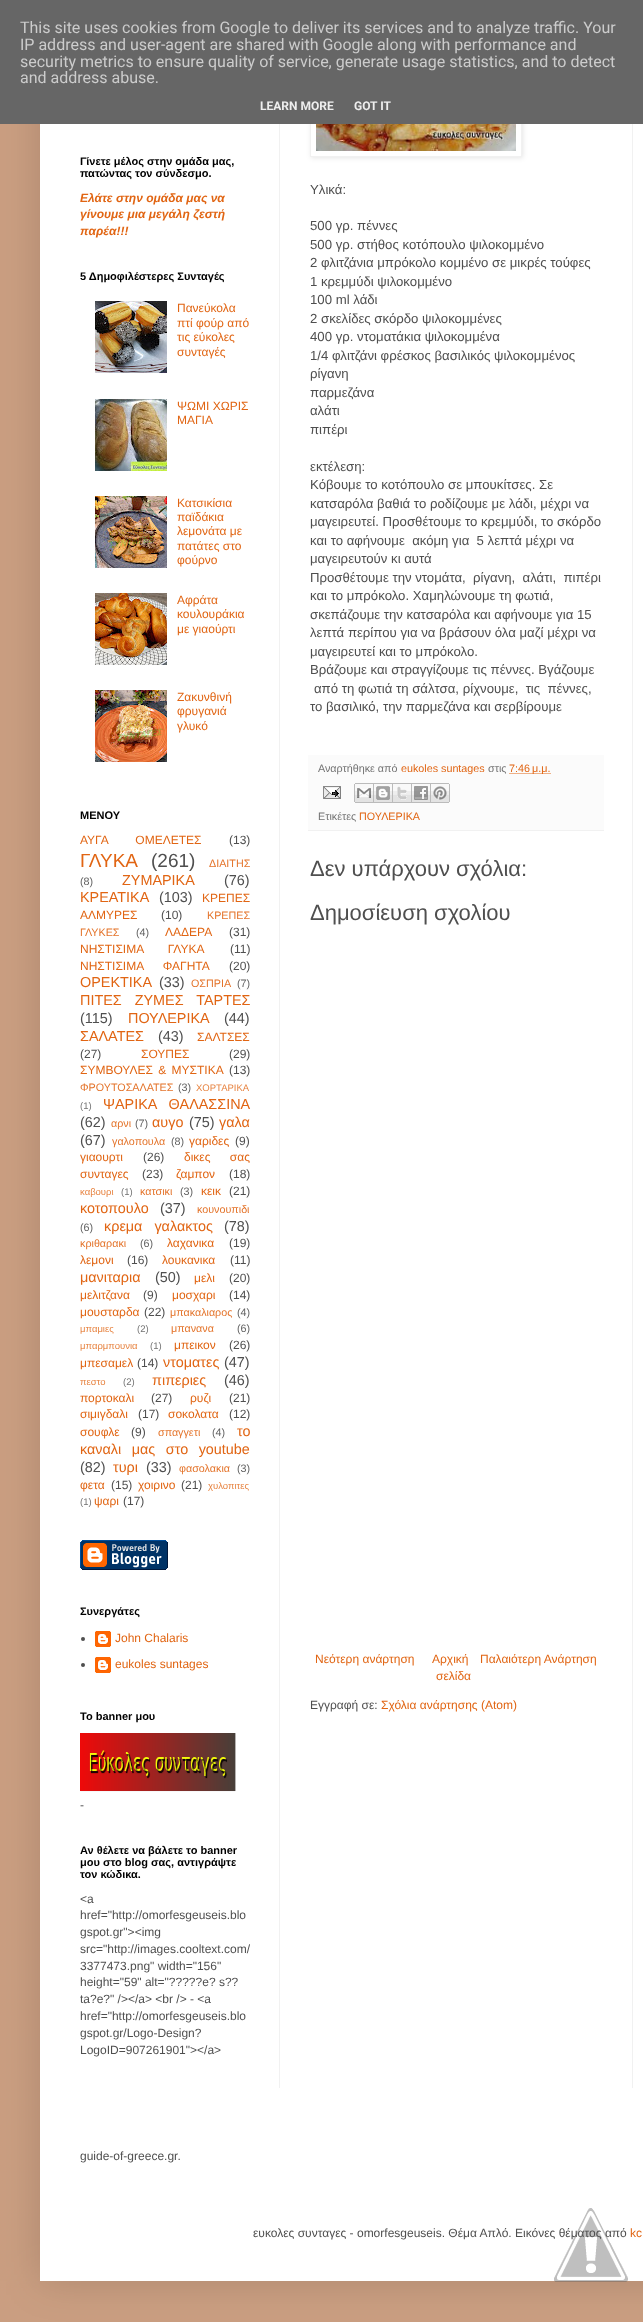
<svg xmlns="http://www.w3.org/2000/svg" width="643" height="2322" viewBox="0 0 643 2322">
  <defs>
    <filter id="blur1" x="-50%" y="-200%" width="200%" height="500%"><feGaussianBlur stdDeviation="20"/></filter>
    <clipPath id="clip1"><path d="M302 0H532V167H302ZM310-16H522V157H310Z" clip-rule="evenodd"/></clipPath>
    <filter id="blur2" x="-50%" y="-200%" width="200%" height="500%"><feGaussianBlur stdDeviation="2.5"/></filter>
  </defs>
  <rect width="100%" height="100%" fill="#ca9e81"/>
  <rect x="40" y="-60" width="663" height="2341" fill="#000000" fill-opacity="0.15" filter="url(#blur1)"/>
  <rect x="40" y="124" width="603" height="2157" fill="#ffffff"/>
  <g clip-path="url(#clip1)">
    <rect x="311" y="-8" width="212" height="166" fill="#000000" fill-opacity="0.1" filter="url(#blur2)"/>
  </g>
  <rect x="310.5" y="-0.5" width="211" height="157" fill="none" stroke="#f1f1f1"/>
  <rect x="0" y="0" width="643" height="124" fill="#666666"/>
  <text x="20" y="33" font-family="Roboto" font-size="16" fill="#cccccc">This site uses cookies from Google to deliver its services and to analyze traffic. Your</text>
  <text x="20" y="50" font-family="Roboto" font-size="16" fill="#cccccc">IP address and user-agent are shared with Google along with performance and</text>
  <text x="20" y="67" font-family="Roboto" font-size="16" fill="#cccccc">security metrics to ensure quality of service, generate usage statistics, and to detect</text>
  <text x="20" y="83" font-family="Roboto" font-size="16" fill="#cccccc">and address abuse.</text>
  <text x="260" y="110" font-family="Roboto" font-size="12" font-weight="bold" fill="#eeeeee">LEARN MORE</text>
  <text x="354" y="110" font-family="Roboto" font-size="12" font-weight="bold" fill="#eeeeee">GOT IT</text>
  <rect x="279" y="124" width="1" height="1964" fill="#f1f1f1"/>
  <rect x="632" y="124" width="1" height="1964" fill="#f1f1f1"/>
  <text x="80" y="165" font-family="Liberation Sans" font-size="11" font-weight="bold" fill="#000000">Γίνετε μέλος στην ομάδα μας,</text>
  <text x="80" y="177" font-family="Liberation Sans" font-size="11" font-weight="bold" fill="#000000">πατώντας τον σύνδεσμο.</text>
  <text x="80" y="202" font-family="Liberation Sans" font-size="12" font-weight="bold" font-style="italic" fill="#e16513">Ελάτε στην ομάδα μας να</text>
  <text x="80" y="218" font-family="Liberation Sans" font-size="12" font-weight="bold" font-style="italic" fill="#e16513">γίνουμε μια μεγάλη ζεστή</text>
  <text x="80" y="235" font-family="Liberation Sans" font-size="12" font-weight="bold" font-style="italic" fill="#e16513">παρέα!!!</text>
  <text x="80" y="280" font-family="Liberation Sans" font-size="11" font-weight="bold" fill="#000000">5 Δημοφιλέστερες Συνταγές</text>
  <image x="95" y="301" width="72" height="72" href="img1.png"/>
  <text x="177" y="312" font-family="Liberation Sans" font-size="12" fill="#e16513">Πανεύκολα</text>
  <text x="177" y="327" font-family="Liberation Sans" font-size="12" fill="#e16513">πτί φούρ από</text>
  <text x="177" y="341" font-family="Liberation Sans" font-size="12" fill="#e16513">τις εύκολες</text>
  <text x="177" y="356" font-family="Liberation Sans" font-size="12" fill="#e16513">συνταγές</text>
  <image x="95" y="399" width="72" height="72" href="img2.png"/>
  <text x="177" y="410" font-family="Liberation Sans" font-size="12" fill="#e16513">ΨΩΜΙ ΧΩΡΙΣ</text>
  <text x="177" y="424" font-family="Liberation Sans" font-size="12" fill="#e16513">ΜΑΓΙΑ</text>
  <image x="95" y="496" width="72" height="72" href="img3.png"/>
  <text x="177" y="507" font-family="Liberation Sans" font-size="12" fill="#e16513">Κατσικίσια</text>
  <text x="177" y="521" font-family="Liberation Sans" font-size="12" fill="#e16513">παϊδάκια</text>
  <text x="177" y="535" font-family="Liberation Sans" font-size="12" fill="#e16513">λεμονάτα με</text>
  <text x="177" y="550" font-family="Liberation Sans" font-size="12" fill="#e16513">πατάτες στο</text>
  <text x="177" y="564" font-family="Liberation Sans" font-size="12" fill="#e16513">φούρνο</text>
  <image x="95" y="593" width="72" height="72" href="img4.png"/>
  <text x="177" y="604" font-family="Liberation Sans" font-size="12" fill="#e16513">Αφράτα</text>
  <text x="177" y="618" font-family="Liberation Sans" font-size="12" fill="#e16513">κουλουράκια</text>
  <text x="177" y="633" font-family="Liberation Sans" font-size="12" fill="#e16513">με γιαούρτι</text>
  <image x="95" y="690" width="72" height="72" href="img5.png"/>
  <text x="177" y="701" font-family="Liberation Sans" font-size="12" fill="#e16513">Ζακυνθινή</text>
  <text x="177" y="715" font-family="Liberation Sans" font-size="12" fill="#e16513">φρυγανιά</text>
  <text x="177" y="730" font-family="Liberation Sans" font-size="12" fill="#e16513">γλυκό</text>
  <text x="80" y="819" font-family="Liberation Sans" font-size="11" font-weight="bold" fill="#000000">ΜΕΝΟΥ</text>
  <text x="80" y="844" word-spacing="24" font-family="Liberation Sans" font-size="12" fill="#e16513">ΑΥΓΑ ΟΜΕΛΕΤΕΣ</text>
  <text x="229" y="844" font-family="Liberation Sans" font-size="12" fill="#4f4f4f">(13)</text>
  <text x="80" y="867" font-family="Liberation Sans" font-size="19" fill="#e16513">ΓΛΥΚΑ</text>
  <text x="151" y="867" font-family="Liberation Sans" font-size="19" fill="#4f4f4f">(261)</text>
  <text x="209" y="867" font-family="Liberation Sans" font-size="10.75" fill="#e4742b">ΔΙΑΙΤΗΣ</text>
  <text x="80" y="885" font-family="Liberation Sans" font-size="10.75" fill="#616161">(8)</text>
  <text x="122" y="885" font-family="Liberation Sans" font-size="14.4" fill="#e16513">ΖΥΜΑΡΙΚΑ</text>
  <text x="224" y="885" font-family="Liberation Sans" font-size="14.4" fill="#4f4f4f">(76)</text>
  <text x="80" y="902" font-family="Liberation Sans" font-size="14.4" fill="#e16513">ΚΡΕΑΤΙΚΑ</text>
  <text x="159" y="902" font-family="Liberation Sans" font-size="14.4" fill="#4f4f4f">(103)</text>
  <text x="202" y="902" font-family="Liberation Sans" font-size="12" fill="#e16513">ΚΡΕΠΕΣ</text>
  <text x="80" y="919" font-family="Liberation Sans" font-size="12" fill="#e16513">ΑΛΜΥΡΕΣ</text>
  <text x="161" y="919" font-family="Liberation Sans" font-size="12" fill="#4f4f4f">(10)</text>
  <text x="207" y="919" font-family="Liberation Sans" font-size="10.75" fill="#e4742b">ΚΡΕΠΕΣ</text>
  <text x="80" y="936" font-family="Liberation Sans" font-size="10.75" fill="#e4742b">ΓΛΥΚΕΣ</text>
  <text x="136" y="936" font-family="Liberation Sans" font-size="10.75" fill="#616161">(4)</text>
  <text x="165" y="936" font-family="Liberation Sans" font-size="12" fill="#e16513">ΛΑΔΕΡΑ</text>
  <text x="229" y="936" font-family="Liberation Sans" font-size="12" fill="#4f4f4f">(31)</text>
  <text x="80" y="953" word-spacing="21" font-family="Liberation Sans" font-size="12" fill="#e16513">ΝΗΣΤΙΣΙΜΑ ΓΛΥΚΑ</text>
  <text x="230" y="953" font-family="Liberation Sans" font-size="12" fill="#4f4f4f">(11)</text>
  <text x="80" y="970" word-spacing="16" font-family="Liberation Sans" font-size="12" fill="#e16513">ΝΗΣΤΙΣΙΜΑ ΦΑΓΗΤΑ</text>
  <text x="229" y="970" font-family="Liberation Sans" font-size="12" fill="#4f4f4f">(20)</text>
  <text x="80" y="987" font-family="Liberation Sans" font-size="14.4" fill="#e16513">ΟΡΕΚΤΙΚΑ</text>
  <text x="159" y="987" font-family="Liberation Sans" font-size="14.4" fill="#4f4f4f">(33)</text>
  <text x="191" y="987" font-family="Liberation Sans" font-size="10.75" fill="#e4742b">ΟΣΠΡΙΑ</text>
  <text x="237" y="987" font-family="Liberation Sans" font-size="10.75" fill="#616161">(7)</text>
  <text x="80" y="1005" word-spacing="9" font-family="Liberation Sans" font-size="14.4" fill="#e16513">ΠΙΤΕΣ ΖΥΜΕΣ ΤΑΡΤΕΣ</text>
  <text x="80" y="1023" font-family="Liberation Sans" font-size="14.4" fill="#4f4f4f">(115)</text>
  <text x="128" y="1023" font-family="Liberation Sans" font-size="14.4" fill="#e16513">ΠΟΥΛΕΡΙΚΑ</text>
  <text x="224" y="1023" font-family="Liberation Sans" font-size="14.4" fill="#4f4f4f">(44)</text>
  <text x="80" y="1041" font-family="Liberation Sans" font-size="14.4" fill="#e16513">ΣΑΛΑΤΕΣ</text>
  <text x="158" y="1041" font-family="Liberation Sans" font-size="14.4" fill="#4f4f4f">(43)</text>
  <text x="197" y="1041" font-family="Liberation Sans" font-size="12" fill="#e16513">ΣΑΛΤΣΕΣ</text>
  <text x="80" y="1058" font-family="Liberation Sans" font-size="12" fill="#4f4f4f">(27)</text>
  <text x="141" y="1058" font-family="Liberation Sans" font-size="12" fill="#e16513">ΣΟΥΠΕΣ</text>
  <text x="229" y="1058" font-family="Liberation Sans" font-size="12" fill="#4f4f4f">(29)</text>
  <text x="80" y="1074" word-spacing="2" font-family="Liberation Sans" font-size="12" fill="#e16513">ΣΥΜΒΟΥΛΕΣ &amp; ΜΥΣΤΙΚΑ</text>
  <text x="229" y="1074" font-family="Liberation Sans" font-size="12" fill="#4f4f4f">(13)</text>
  <text x="80" y="1091" font-family="Liberation Sans" font-size="10.75" fill="#e4742b">ΦΡΟΥΤΟΣΑΛΑΤΕΣ</text>
  <text x="178" y="1091" font-family="Liberation Sans" font-size="10.75" fill="#616161">(3)</text>
  <text x="196" y="1091" font-family="Liberation Sans" font-size="9.5" fill="#e78442">ΧΟΡΤΑΡΙΚΑ</text>
  <text x="80" y="1109" font-family="Liberation Sans" font-size="9.5" fill="#737373">(1)</text>
  <text x="103" y="1109" word-spacing="8" font-family="Liberation Sans" font-size="14.4" fill="#e16513">ΨΑΡΙΚΑ ΘΑΛΑΣΣΙΝΑ</text>
  <text x="80" y="1127" font-family="Liberation Sans" font-size="14.4" fill="#4f4f4f">(62)</text>
  <text x="111" y="1127" font-family="Liberation Sans" font-size="10.75" fill="#e4742b">αρνι</text>
  <text x="135" y="1127" font-family="Liberation Sans" font-size="10.75" fill="#616161">(7)</text>
  <text x="152" y="1127" font-family="Liberation Sans" font-size="14.4" fill="#e16513">αυγο</text>
  <text x="189" y="1127" font-family="Liberation Sans" font-size="14.4" fill="#4f4f4f">(75)</text>
  <text x="219" y="1127" font-family="Liberation Sans" font-size="14.4" fill="#e16513">γαλα</text>
  <text x="80" y="1145" font-family="Liberation Sans" font-size="14.4" fill="#4f4f4f">(67)</text>
  <text x="112" y="1145" font-family="Liberation Sans" font-size="10.75" fill="#e4742b">γαλοπουλα</text>
  <text x="171" y="1145" font-family="Liberation Sans" font-size="10.75" fill="#616161">(8)</text>
  <text x="189" y="1145" font-family="Liberation Sans" font-size="12" fill="#e16513">γαριδες</text>
  <text x="235" y="1145" font-family="Liberation Sans" font-size="12" fill="#4f4f4f">(9)</text>
  <text x="80" y="1161" font-family="Liberation Sans" font-size="12" fill="#e16513">γιαουρτι</text>
  <text x="143" y="1161" font-family="Liberation Sans" font-size="12" fill="#4f4f4f">(26)</text>
  <text x="184" y="1161" word-spacing="16" font-family="Liberation Sans" font-size="12" fill="#e16513">δικες σας</text>
  <text x="80" y="1178" font-family="Liberation Sans" font-size="12" fill="#e16513">συνταγες</text>
  <text x="142" y="1178" font-family="Liberation Sans" font-size="12" fill="#4f4f4f">(23)</text>
  <text x="176" y="1178" font-family="Liberation Sans" font-size="12" fill="#e16513">ζαμπον</text>
  <text x="229" y="1178" font-family="Liberation Sans" font-size="12" fill="#4f4f4f">(18)</text>
  <text x="80" y="1195" font-family="Liberation Sans" font-size="9.5" fill="#e78442">καβουρι</text>
  <text x="121" y="1195" font-family="Liberation Sans" font-size="9.5" fill="#737373">(1)</text>
  <text x="140" y="1195" font-family="Liberation Sans" font-size="10.75" fill="#e4742b">κατσικι</text>
  <text x="180" y="1195" font-family="Liberation Sans" font-size="10.75" fill="#616161">(3)</text>
  <text x="201" y="1195" font-family="Liberation Sans" font-size="12" fill="#e16513">κεικ</text>
  <text x="229" y="1195" font-family="Liberation Sans" font-size="12" fill="#4f4f4f">(21)</text>
  <text x="80" y="1213" font-family="Liberation Sans" font-size="14.4" fill="#e16513">κοτοπουλο</text>
  <text x="160" y="1213" font-family="Liberation Sans" font-size="14.4" fill="#4f4f4f">(37)</text>
  <text x="197" y="1213" font-family="Liberation Sans" font-size="10.75" fill="#e4742b">κουνουπιδι</text>
  <text x="80" y="1231" font-family="Liberation Sans" font-size="10.75" fill="#616161">(6)</text>
  <text x="104" y="1231" word-spacing="8" font-family="Liberation Sans" font-size="14.4" fill="#e16513">κρεμα γαλακτος</text>
  <text x="224" y="1231" font-family="Liberation Sans" font-size="14.4" fill="#4f4f4f">(78)</text>
  <text x="80" y="1247" font-family="Liberation Sans" font-size="10.75" fill="#e4742b">κριθαρακι</text>
  <text x="140" y="1247" font-family="Liberation Sans" font-size="10.75" fill="#616161">(6)</text>
  <text x="167" y="1247" font-family="Liberation Sans" font-size="12" fill="#e16513">λαχανικα</text>
  <text x="229" y="1247" font-family="Liberation Sans" font-size="12" fill="#4f4f4f">(19)</text>
  <text x="80" y="1264" font-family="Liberation Sans" font-size="12" fill="#e16513">λεμονι</text>
  <text x="127" y="1264" font-family="Liberation Sans" font-size="12" fill="#4f4f4f">(16)</text>
  <text x="162" y="1264" font-family="Liberation Sans" font-size="12" fill="#e16513">λουκανικα</text>
  <text x="230" y="1264" font-family="Liberation Sans" font-size="12" fill="#4f4f4f">(11)</text>
  <text x="80" y="1282" font-family="Liberation Sans" font-size="14.4" fill="#e16513">μανιταρια</text>
  <text x="155" y="1282" font-family="Liberation Sans" font-size="14.4" fill="#4f4f4f">(50)</text>
  <text x="194" y="1282" font-family="Liberation Sans" font-size="12" fill="#e16513">μελι</text>
  <text x="229" y="1282" font-family="Liberation Sans" font-size="12" fill="#4f4f4f">(20)</text>
  <text x="80" y="1299" font-family="Liberation Sans" font-size="12" fill="#e16513">μελιτζανα</text>
  <text x="143" y="1299" font-family="Liberation Sans" font-size="12" fill="#4f4f4f">(9)</text>
  <text x="172" y="1299" font-family="Liberation Sans" font-size="12" fill="#e16513">μοσχαρι</text>
  <text x="229" y="1299" font-family="Liberation Sans" font-size="12" fill="#4f4f4f">(14)</text>
  <text x="80" y="1316" font-family="Liberation Sans" font-size="12" fill="#e16513">μουσταρδα</text>
  <text x="144" y="1316" font-family="Liberation Sans" font-size="12" fill="#4f4f4f">(22)</text>
  <text x="170" y="1316" font-family="Liberation Sans" font-size="10.75" fill="#e4742b">μπακαλιαρος</text>
  <text x="237" y="1316" font-family="Liberation Sans" font-size="10.75" fill="#616161">(4)</text>
  <text x="80" y="1332" font-family="Liberation Sans" font-size="9.5" fill="#e78442">μπαμιες</text>
  <text x="137" y="1332" font-family="Liberation Sans" font-size="9.5" fill="#737373">(2)</text>
  <text x="171" y="1332" font-family="Liberation Sans" font-size="10.75" fill="#e4742b">μπανανα</text>
  <text x="237" y="1332" font-family="Liberation Sans" font-size="10.75" fill="#616161">(6)</text>
  <text x="80" y="1349" font-family="Liberation Sans" font-size="9.5" fill="#e78442">μπαρμπουνια</text>
  <text x="150" y="1349" font-family="Liberation Sans" font-size="9.5" fill="#737373">(1)</text>
  <text x="174" y="1349" font-family="Liberation Sans" font-size="12" fill="#e16513">μπεικον</text>
  <text x="229" y="1349" font-family="Liberation Sans" font-size="12" fill="#4f4f4f">(26)</text>
  <text x="80" y="1367" font-family="Liberation Sans" font-size="12" fill="#e16513">μπεσαμελ</text>
  <text x="137" y="1367" font-family="Liberation Sans" font-size="12" fill="#4f4f4f">(14)</text>
  <text x="163" y="1367" font-family="Liberation Sans" font-size="14.4" fill="#e16513">ντοματες</text>
  <text x="224" y="1367" font-family="Liberation Sans" font-size="14.4" fill="#4f4f4f">(47)</text>
  <text x="80" y="1385" font-family="Liberation Sans" font-size="9.5" fill="#e78442">πεστο</text>
  <text x="123" y="1385" font-family="Liberation Sans" font-size="9.5" fill="#737373">(2)</text>
  <text x="152" y="1385" font-family="Liberation Sans" font-size="14.4" fill="#e16513">πιπεριες</text>
  <text x="224" y="1385" font-family="Liberation Sans" font-size="14.4" fill="#4f4f4f">(46)</text>
  <text x="80" y="1402" font-family="Liberation Sans" font-size="12" fill="#e16513">πορτοκαλι</text>
  <text x="151" y="1402" font-family="Liberation Sans" font-size="12" fill="#4f4f4f">(27)</text>
  <text x="190" y="1402" font-family="Liberation Sans" font-size="12" fill="#e16513">ρυζι</text>
  <text x="229" y="1402" font-family="Liberation Sans" font-size="12" fill="#4f4f4f">(21)</text>
  <text x="80" y="1418" font-family="Liberation Sans" font-size="12" fill="#e16513">σιμιγδαλι</text>
  <text x="138" y="1418" font-family="Liberation Sans" font-size="12" fill="#4f4f4f">(17)</text>
  <text x="168" y="1418" font-family="Liberation Sans" font-size="12" fill="#e16513">σοκολατα</text>
  <text x="229" y="1418" font-family="Liberation Sans" font-size="12" fill="#4f4f4f">(12)</text>
  <text x="80" y="1436" font-family="Liberation Sans" font-size="12" fill="#e16513">σουφλε</text>
  <text x="131" y="1436" font-family="Liberation Sans" font-size="12" fill="#4f4f4f">(9)</text>
  <text x="158" y="1436" font-family="Liberation Sans" font-size="10.75" fill="#e4742b">σπαγγετι</text>
  <text x="212" y="1436" font-family="Liberation Sans" font-size="10.75" fill="#616161">(4)</text>
  <text x="237" y="1436" font-family="Liberation Sans" font-size="14.4" fill="#e16513">το</text>
  <text x="80" y="1454" word-spacing="6.5" font-family="Liberation Sans" font-size="14.4" fill="#e16513">καναλι μας στο youtube</text>
  <text x="80" y="1472" font-family="Liberation Sans" font-size="14.4" fill="#4f4f4f">(82)</text>
  <text x="113" y="1472" font-family="Liberation Sans" font-size="14.4" fill="#e16513">τυρι</text>
  <text x="146" y="1472" font-family="Liberation Sans" font-size="14.4" fill="#4f4f4f">(33)</text>
  <text x="179" y="1472" font-family="Liberation Sans" font-size="10.75" fill="#e4742b">φασολακια</text>
  <text x="237" y="1472" font-family="Liberation Sans" font-size="10.75" fill="#616161">(3)</text>
  <text x="80" y="1489" font-family="Liberation Sans" font-size="12" fill="#e16513">φετα</text>
  <text x="111" y="1489" font-family="Liberation Sans" font-size="12" fill="#4f4f4f">(15)</text>
  <text x="138" y="1489" font-family="Liberation Sans" font-size="12" fill="#e16513">χοιρινο</text>
  <text x="181" y="1489" font-family="Liberation Sans" font-size="12" fill="#4f4f4f">(21)</text>
  <text x="208" y="1489" font-family="Liberation Sans" font-size="9.5" fill="#e78442">χυλοπιτες</text>
  <text x="80" y="1505" font-family="Liberation Sans" font-size="9.5" fill="#737373">(1)</text>
  <text x="94" y="1505" font-family="Liberation Sans" font-size="12" fill="#e16513">ψαρι</text>
  <text x="123" y="1505" font-family="Liberation Sans" font-size="12" fill="#4f4f4f">(17)</text>
  <image x="80" y="1540" width="88" height="30" href="img6.png"/>
  <text x="80" y="1615" font-family="Liberation Sans" font-size="11" font-weight="bold" fill="#000000">Συνεργάτες</text>
  <circle cx="83" cy="1639" r="2" fill="#4f4f4f"/>
  <image x="95" y="1631" width="16" height="16" href="img7.png"/>
  <text x="115" y="1642" font-family="Liberation Sans" font-size="12" fill="#e16513">John Chalaris</text>
  <circle cx="83" cy="1665" r="2" fill="#4f4f4f"/>
  <image x="95" y="1657" width="16" height="16" href="img7.png"/>
  <text x="115" y="1668" font-family="Liberation Sans" font-size="12" fill="#e16513">eukoles suntages</text>
  <text x="80" y="1720" font-family="Liberation Sans" font-size="11" font-weight="bold" fill="#000000">Το banner μου</text>
  <image x="80" y="1733" width="156" height="59" href="img8.png"/>
  <text x="80" y="1809" font-family="Liberation Sans" font-size="12" fill="#4f4f4f">-</text>
  <text x="80" y="1854" font-family="Liberation Sans" font-size="11" font-weight="bold" fill="#000000">Αν θέλετε να βάλετε το banner</text>
  <text x="80" y="1866" font-family="Liberation Sans" font-size="11" font-weight="bold" fill="#000000">μου στο blog σας, αντιγράψτε</text>
  <text x="80" y="1878" font-family="Liberation Sans" font-size="11" font-weight="bold" fill="#000000">τον κώδικα.</text>
  <text x="80" y="1903" font-family="Liberation Sans" font-size="12" fill="#4f4f4f">&lt;a</text>
  <text x="80" y="1919" font-family="Liberation Sans" font-size="12" fill="#4f4f4f">href="http://omorfesgeuseis.blo</text>
  <text x="80" y="1936" font-family="Liberation Sans" font-size="12" fill="#4f4f4f">gspot.gr"&gt;&lt;img</text>
  <text x="80" y="1953" font-family="Liberation Sans" font-size="12" fill="#4f4f4f">src="http://images.cooltext.com/</text>
  <text x="80" y="1970" font-family="Liberation Sans" font-size="12" fill="#4f4f4f">3377473.png" width="156"</text>
  <text x="80" y="1986" font-family="Liberation Sans" font-size="12" fill="#4f4f4f">height="59" alt="?????e? s??</text>
  <text x="80" y="2003" font-family="Liberation Sans" font-size="12" fill="#4f4f4f">ta?e?" /&gt;&lt;/a&gt; &lt;br /&gt; - &lt;a</text>
  <text x="80" y="2020" font-family="Liberation Sans" font-size="12" fill="#4f4f4f">href="http://omorfesgeuseis.blo</text>
  <text x="80" y="2037" font-family="Liberation Sans" font-size="12" fill="#4f4f4f">gspot.gr/Logo-Design?</text>
  <text x="80" y="2054" font-family="Liberation Sans" font-size="12" fill="#4f4f4f">LogoID=907261901"&gt;&lt;/a&gt;</text>
  <image x="554" y="2208" width="74" height="74" href="img9.png"/>
  <image x="316" y="124" width="200" height="27" href="img10.png"/>
  <text x="310" y="194" font-family="Liberation Sans" font-size="13.2" fill="#4f4f4f">Υλικά:</text>
  <text x="310" y="230" font-family="Liberation Sans" font-size="13.2" fill="#4f4f4f">500 γρ. πέννες</text>
  <text x="310" y="249" font-family="Liberation Sans" font-size="13.2" fill="#4f4f4f">500 γρ. στήθος κοτόπουλο ψιλοκομμένο</text>
  <text x="310" y="267" font-family="Liberation Sans" font-size="13.2" fill="#4f4f4f">2 φλιτζάνια μπρόκολο κομμένο σε μικρές τούφες</text>
  <text x="310" y="286" font-family="Liberation Sans" font-size="13.2" fill="#4f4f4f">1 κρεμμύδι ψιλοκομμένο</text>
  <text x="310" y="304" font-family="Liberation Sans" font-size="13.2" fill="#4f4f4f">100 ml λάδι</text>
  <text x="310" y="323" font-family="Liberation Sans" font-size="13.2" fill="#4f4f4f">2 σκελίδες σκόρδο ψιλοκομμένες</text>
  <text x="310" y="341" font-family="Liberation Sans" font-size="13.2" fill="#4f4f4f">400 γρ. ντοματάκια ψιλοκομμένα</text>
  <text x="310" y="360" font-family="Liberation Sans" font-size="13.2" fill="#4f4f4f">1/4 φλιτζάνι φρέσκος βασιλικός ψιλοκομμένος</text>
  <text x="310" y="378" font-family="Liberation Sans" font-size="13.2" fill="#4f4f4f">ρίγανη</text>
  <text x="310" y="397" font-family="Liberation Sans" font-size="13.2" fill="#4f4f4f">παρμεζάνα</text>
  <text x="310" y="415" font-family="Liberation Sans" font-size="13.2" fill="#4f4f4f">αλάτι</text>
  <text x="310" y="434" font-family="Liberation Sans" font-size="13.2" fill="#4f4f4f">πιπέρι</text>
  <text x="310" y="471" font-family="Liberation Sans" font-size="13.2" fill="#4f4f4f">εκτέλεση:</text>
  <text x="310" y="489" font-family="Liberation Sans" font-size="13.2" fill="#4f4f4f">Κόβουμε το κοτόπουλο σε μπουκίτσες. Σε</text>
  <text x="310" y="508" font-family="Liberation Sans" font-size="13.2" fill="#4f4f4f">κατσαρόλα βαθιά το ροδίζουμε με λάδι, μέχρι να</text>
  <text x="310" y="526" font-family="Liberation Sans" font-size="13.2" fill="#4f4f4f">μαγειρευτεί. Προσθέτουμε το κρεμμύδι, το σκόρδο</text>
  <text x="310" y="545" font-family="Liberation Sans" font-size="13.2" fill="#4f4f4f" xml:space="preserve">και το αφήνουμε  ακόμη για  5 λεπτά μέχρι να</text>
  <text x="310" y="563" font-family="Liberation Sans" font-size="13.2" fill="#4f4f4f">μαγειρευτούν κι αυτά</text>
  <text x="310" y="582" font-family="Liberation Sans" font-size="13.2" fill="#4f4f4f" xml:space="preserve">Προσθέτουμε την ντομάτα,  ρίγανη,  αλάτι,  πιπέρι</text>
  <text x="310" y="600" font-family="Liberation Sans" font-size="13.2" fill="#4f4f4f">και το μπρόκολο. Χαμηλώνουμε τη φωτιά,</text>
  <text x="310" y="619" font-family="Liberation Sans" font-size="13.2" fill="#4f4f4f">σκεπάζουμε την κατσαρόλα και αφήνουμε για 15</text>
  <text x="310" y="637" font-family="Liberation Sans" font-size="13.2" fill="#4f4f4f">λεπτά περίπου για να βράσουν όλα μαζί μέχρι να</text>
  <text x="310" y="656" font-family="Liberation Sans" font-size="13.2" fill="#4f4f4f">μαγειρευτεί και το μπρόκολο.</text>
  <text x="310" y="674" font-family="Liberation Sans" font-size="13.2" fill="#4f4f4f">Βράζουμε και στραγγίζουμε τις πέννες. Βγάζουμε</text>
  <text x="314" y="693" font-family="Liberation Sans" font-size="13.2" fill="#4f4f4f" xml:space="preserve">από τη φωτιά τη σάλτσα, ρίχνουμε,  τις  πέννες,</text>
  <text x="310" y="711" font-family="Liberation Sans" font-size="13.2" fill="#4f4f4f">το βασιλικό, την παρμεζάνα και σερβίρουμε</text>
  <rect x="308" y="755" width="296" height="75" fill="#fbfbfb"/>
  <rect x="308" y="830" width="296" height="1" fill="#f1f1f1"/>
  <text x="318" y="772" font-family="Liberation Sans" font-size="10.75" fill="#737373">Αναρτήθηκε από</text>
  <text x="401" y="772" font-family="Liberation Sans" font-size="10.75" fill="#e16513">eukoles suntages</text>
  <text x="488" y="772" font-family="Liberation Sans" font-size="10.75" fill="#737373">στις</text>
  <path d="M509.5 773.5H551" fill="none" stroke="#e16513" stroke-dasharray="1 1"/>
  <text x="509" y="772" font-family="Liberation Sans" font-size="10.75" fill="#e16513">7:46 μ.μ.</text>
  <image x="323" y="786" width="18" height="13" href="img11.png"/>
  <image x="354" y="783" width="20" height="20" href="img12.png"/>
  <image x="374" y="783" width="19" height="20" href="img13.png"/>
  <image x="393" y="783" width="19" height="20" href="img14.png"/>
  <image x="412" y="783" width="19" height="20" href="img15.png"/>
  <image x="431" y="783" width="19" height="20" href="img16.png"/>
  <text x="318" y="820" font-family="Liberation Sans" font-size="10.75" fill="#737373">Ετικέτες</text>
  <text x="359" y="820" font-family="Liberation Sans" font-size="10.75" fill="#e16513">ΠΟΥΛΕΡΙΚΑ</text>
  <text x="310" y="876" font-family="Liberation Sans" font-size="22" fill="#4f4f4f">Δεν υπάρχουν σχόλια:</text>
  <text x="310" y="920" font-family="Liberation Sans" font-size="22" fill="#4f4f4f">Δημοσίευση σχολίου</text>
  <text x="315" y="1663" font-family="Liberation Sans" font-size="12" fill="#e16513">Νεότερη ανάρτηση</text>
  <text x="432" y="1663" font-family="Liberation Sans" font-size="12" fill="#e16513">Αρχική</text>
  <text x="480" y="1663" font-family="Liberation Sans" font-size="12" fill="#e16513">Παλαιότερη Ανάρτηση</text>
  <text x="436" y="1680" font-family="Liberation Sans" font-size="12" fill="#e16513">σελίδα</text>
  <text x="310" y="1709" font-family="Liberation Sans" font-size="12" fill="#4f4f4f">Εγγραφή σε:</text>
  <text x="381" y="1709" font-family="Liberation Sans" font-size="12" fill="#e16513">Σχόλια ανάρτησης (Atom)</text>
  <text x="80" y="2160" font-family="Liberation Sans" font-size="12" fill="#4f4f4f">guide-of-greece.gr.</text>
  <text x="253" y="2237" font-family="Liberation Sans" font-size="12" fill="#4f4f4f">ευκολες συνταγες - omorfesgeuseis. Θέμα Απλό. Εικόνες θέματος από</text>
  <text x="630" y="2237" font-family="Liberation Sans" font-size="12" fill="#e16513">kc</text>
</svg>
